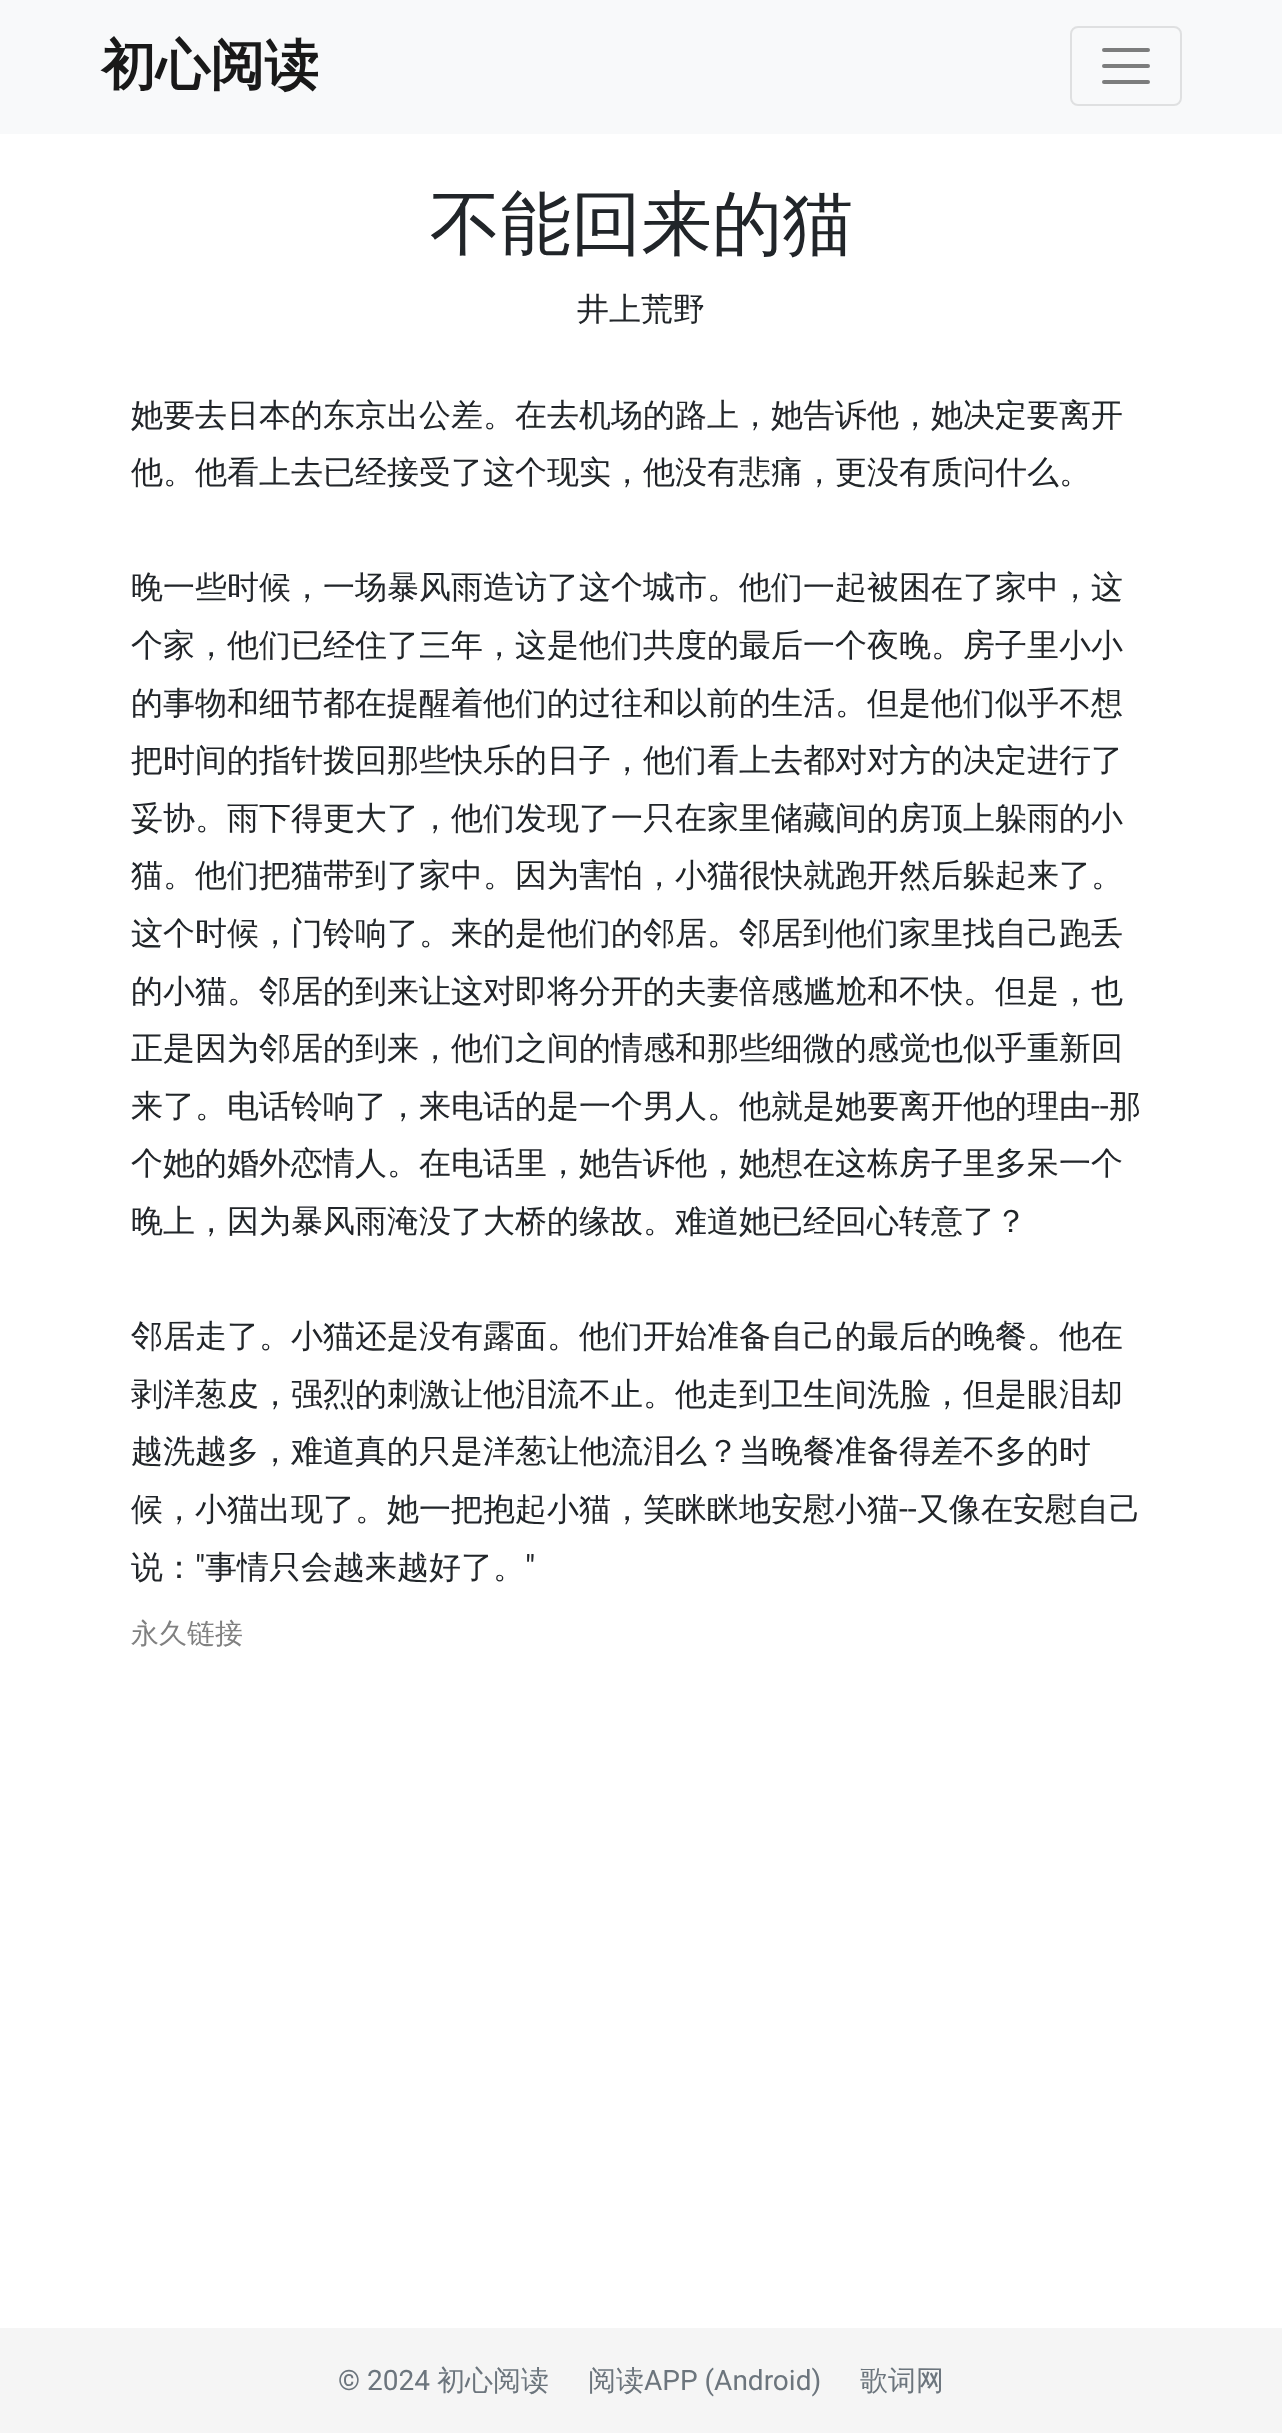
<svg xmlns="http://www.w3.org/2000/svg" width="1282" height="2433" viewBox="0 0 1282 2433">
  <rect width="100%" height="100%" fill="#ffffff"/>
  <rect x="0" y="0" width="1282" height="134" fill="#f8f9fa"/>
  <text x="101" y="84" font-family="WenQuanYi Zen Hei" font-size="54.5" font-weight="bold" fill="#191919">初心阅读</text>
  <rect x="1071" y="27" width="110" height="78" rx="7" fill="none" stroke="#dfe0e1" stroke-width="2"/>
  <path d="M1104 50H1148M1104 66H1148M1104 82H1148" fill="none" stroke="#7c7d7d" stroke-width="4" stroke-linecap="round"/>
  <text x="430" y="248" font-family="WenQuanYi Zen Hei" font-size="70.5" font-weight="500" fill="#212529">不能回来的猫</text>
  <text x="577" y="320" font-family="WenQuanYi Zen Hei" font-size="32" font-weight="500" fill="#212529">井上荒野</text>
  <text x="131" y="426" font-family="WenQuanYi Zen Hei" font-size="32" font-weight="500" fill="#212529">她要去日本的东京出公差。在去机场的路上，她告诉他，她决定要离开</text>
  <text x="131" y="483" font-family="WenQuanYi Zen Hei" font-size="32" font-weight="500" fill="#212529">他。他看上去已经接受了这个现实，他没有悲痛，更没有质问什么。</text>
  <text x="131" y="598" font-family="WenQuanYi Zen Hei" font-size="32" font-weight="500" fill="#212529">晚一些时候，一场暴风雨造访了这个城市。他们一起被困在了家中，这</text>
  <text x="131" y="656" font-family="WenQuanYi Zen Hei" font-size="32" font-weight="500" fill="#212529">个家，他们已经住了三年，这是他们共度的最后一个夜晚。房子里小小</text>
  <text x="131" y="714" font-family="WenQuanYi Zen Hei" font-size="32" font-weight="500" fill="#212529">的事物和细节都在提醒着他们的过往和以前的生活。但是他们似乎不想</text>
  <text x="131" y="771" font-family="WenQuanYi Zen Hei" font-size="32" font-weight="500" fill="#212529">把时间的指针拨回那些快乐的日子，他们看上去都对对方的决定进行了</text>
  <text x="131" y="829" font-family="WenQuanYi Zen Hei" font-size="32" font-weight="500" fill="#212529">妥协。雨下得更大了，他们发现了一只在家里储藏间的房顶上躲雨的小</text>
  <text x="131" y="886" font-family="WenQuanYi Zen Hei" font-size="32" font-weight="500" fill="#212529">猫。他们把猫带到了家中。因为害怕，小猫很快就跑开然后躲起来了。</text>
  <text x="131" y="944" font-family="WenQuanYi Zen Hei" font-size="32" font-weight="500" fill="#212529">这个时候，门铃响了。来的是他们的邻居。邻居到他们家里找自己跑丢</text>
  <text x="131" y="1002" font-family="WenQuanYi Zen Hei" font-size="32" font-weight="500" fill="#212529">的小猫。邻居的到来让这对即将分开的夫妻倍感尴尬和不快。但是，也</text>
  <text x="131" y="1059" font-family="WenQuanYi Zen Hei" font-size="32" font-weight="500" fill="#212529">正是因为邻居的到来，他们之间的情感和那些细微的感觉也似乎重新回</text>
  <text x="131" y="1117" font-family="WenQuanYi Zen Hei" font-size="32" font-weight="500" fill="#212529">来了。电话铃响了，来电话的是一个男人。他就是她要离开他的理由</text>
  <text x="1091" y="1117" font-family="Roboto" font-size="32" fill="#212529">--</text>
  <text x="1109" y="1117" font-family="WenQuanYi Zen Hei" font-size="32" font-weight="500" fill="#212529">那</text>
  <text x="131" y="1174" font-family="WenQuanYi Zen Hei" font-size="32" font-weight="500" fill="#212529">个她的婚外恋情人。在电话里，她告诉他，她想在这栋房子里多呆一个</text>
  <text x="131" y="1232" font-family="WenQuanYi Zen Hei" font-size="32" font-weight="500" fill="#212529">晚上，因为暴风雨淹没了大桥的缘故。难道她已经回心转意了？</text>
  <text x="131" y="1347" font-family="WenQuanYi Zen Hei" font-size="32" font-weight="500" fill="#212529">邻居走了。小猫还是没有露面。他们开始准备自己的最后的晚餐。他在</text>
  <text x="131" y="1405" font-family="WenQuanYi Zen Hei" font-size="32" font-weight="500" fill="#212529">剥洋葱皮，强烈的刺激让他泪流不止。他走到卫生间洗脸，但是眼泪却</text>
  <text x="131" y="1462" font-family="WenQuanYi Zen Hei" font-size="32" font-weight="500" fill="#212529">越洗越多，难道真的只是洋葱让他流泪么？当晚餐准备得差不多的时</text>
  <text x="131" y="1520" font-family="WenQuanYi Zen Hei" font-size="32" font-weight="500" fill="#212529">候，小猫出现了。她一把抱起小猫，笑眯眯地安慰小猫</text>
  <text x="899" y="1520" font-family="Roboto" font-size="32" fill="#212529">--</text>
  <text x="917" y="1520" font-family="WenQuanYi Zen Hei" font-size="32" font-weight="500" fill="#212529">又像在安慰自己</text>
  <text x="131" y="1578" font-family="WenQuanYi Zen Hei" font-size="32" font-weight="500" fill="#212529">说：</text>
  <text x="195" y="1578" font-family="Roboto" font-size="32" fill="#212529">"</text>
  <text x="205" y="1578" font-family="WenQuanYi Zen Hei" font-size="32" font-weight="500" fill="#212529">事情只会越来越好了。</text>
  <text x="525" y="1578" font-family="Roboto" font-size="32" fill="#212529">"</text>
  <text x="131" y="1643" font-family="WenQuanYi Zen Hei" font-size="28" font-weight="500" fill="#808080">永久链接</text>
  <rect x="0" y="2328" width="1282" height="105" fill="#f5f5f5"/>
  <text x="338" y="2390" font-family="Roboto" font-size="28" fill="#6c757d">© 2024</text>
  <text x="437" y="2390" font-family="WenQuanYi Zen Hei" font-size="28" font-weight="500" fill="#6c757d">初心阅读</text>
  <text x="588" y="2390" font-family="WenQuanYi Zen Hei" font-size="28" font-weight="500" fill="#6c757d">阅读</text>
  <text x="644" y="2390" font-family="Roboto" font-size="28" fill="#6c757d">APP (Android)</text>
  <text x="860" y="2390" font-family="WenQuanYi Zen Hei" font-size="28" font-weight="500" fill="#6c757d">歌词网</text>
</svg>
